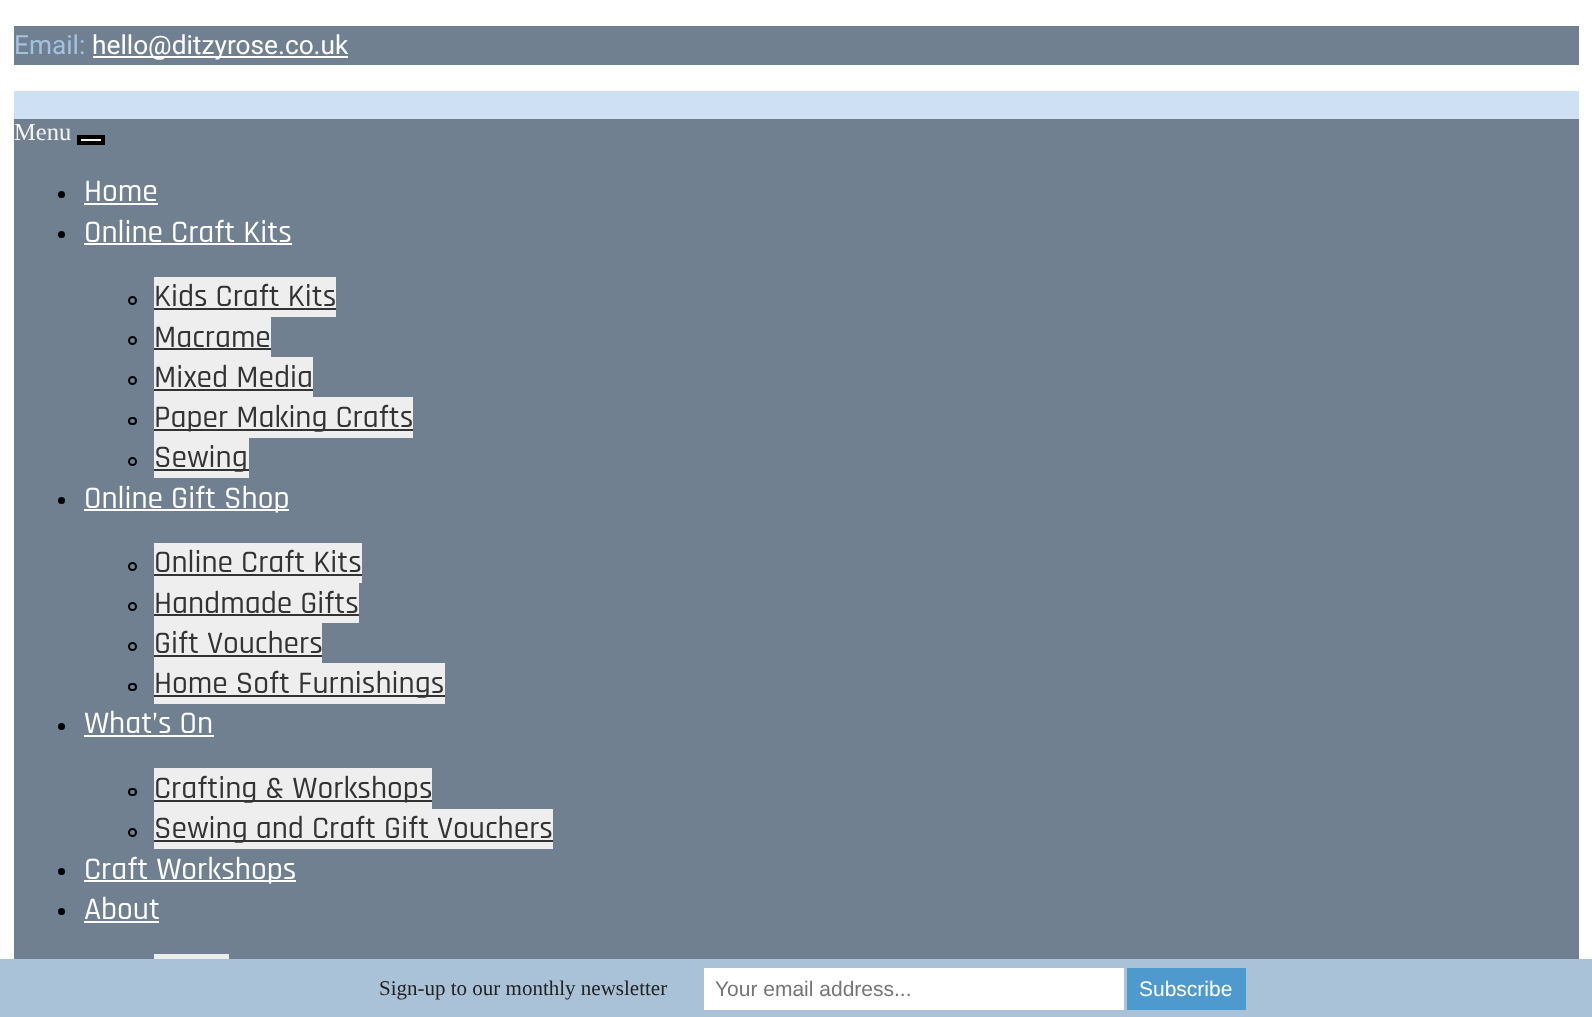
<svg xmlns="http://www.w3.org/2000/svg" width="1592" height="1017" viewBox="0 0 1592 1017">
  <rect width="100%" height="100%" fill="#ffffff"/>
  <rect x="14" y="26" width="1565" height="39" fill="#708090"/>
  <text x="14" y="54" font-family="Roboto" font-size="26.25" fill="#a3c2e1">Email:</text>
  <rect x="93" y="56" width="255" height="2" fill="#ffffff"/>
  <text x="92" y="54" font-family="Roboto" font-size="26.25" fill="#ffffff">hello@ditzyrose.co.uk</text>
  <rect x="14" y="91" width="1565" height="28" fill="#cde0f4"/>
  <rect x="14" y="119" width="1565" height="840" fill="#708090"/>
  <text x="14" y="140" font-family="Liberation Serif" font-size="24.5" fill="#f3f3f3">Menu</text>
  <rect x="79" y="137" width="24" height="6" fill="#f3f3f3" stroke="#000000" stroke-width="4"/>
  <circle cx="61.5" cy="194.5" r="3.5" fill="#000000"/>
  <text x="84" y="201" font-family="Rajdhani" font-size="31.5" font-weight="500" fill="#ffffff">Home</text>
  <rect x="84" y="203" width="74" height="2" fill="#ffffff"/>
  <circle cx="61.5" cy="234.5" r="3.5" fill="#000000"/>
  <text x="84" y="242" font-family="Rajdhani" font-size="31.5" font-weight="500" fill="#ffffff">Online Craft Kits</text>
  <rect x="84" y="243" width="208" height="2" fill="#ffffff"/>
  <circle cx="132.5" cy="300.5" r="3.5" fill="none" stroke="#000000" stroke-width="2"/>
  <rect x="154" y="277" width="182" height="40" fill="#eeeeee"/>
  <text x="154" y="306" font-family="Rajdhani" font-size="31.5" font-weight="500" fill="#333333">Kids Craft Kits</text>
  <rect x="154" y="308" width="182" height="2" fill="#333333"/>
  <circle cx="132.5" cy="340.5" r="3.5" fill="none" stroke="#000000" stroke-width="2"/>
  <rect x="154" y="317" width="117" height="40" fill="#eeeeee"/>
  <text x="154" y="347" font-family="Rajdhani" font-size="31.5" font-weight="500" fill="#333333">Macrame</text>
  <rect x="154" y="348" width="117" height="2" fill="#333333"/>
  <circle cx="132.5" cy="380.5" r="3.5" fill="none" stroke="#000000" stroke-width="2"/>
  <rect x="154" y="357" width="159" height="40" fill="#eeeeee"/>
  <text x="154" y="387" font-family="Rajdhani" font-size="31.5" font-weight="500" fill="#333333">Mixed Media</text>
  <rect x="154" y="389" width="159" height="2" fill="#333333"/>
  <rect x="129" y="418" width="7" height="6" rx="3" fill="none" stroke="#000000" stroke-width="2"/>
  <rect x="154" y="397" width="259" height="41" fill="#eeeeee"/>
  <rect x="154" y="429" width="259" height="2" fill="#333333"/>
  <text x="154" y="427" font-family="Rajdhani" font-size="31.5" font-weight="500" fill="#333333">Paper Making Crafts</text>
  <circle cx="132.5" cy="461.5" r="3.5" fill="none" stroke="#000000" stroke-width="2"/>
  <rect x="154" y="438" width="95" height="40" fill="#eeeeee"/>
  <rect x="154" y="469" width="95" height="2" fill="#333333"/>
  <text x="154" y="467" font-family="Rajdhani" font-size="31.5" font-weight="500" fill="#333333">Sewing</text>
  <circle cx="61.5" cy="500.5" r="3.5" fill="#000000"/>
  <rect x="84" y="509" width="205" height="2" fill="#ffffff"/>
  <text x="84" y="508" font-family="Rajdhani" font-size="31.5" font-weight="500" fill="#ffffff">Online Gift Shop</text>
  <circle cx="132.5" cy="566.5" r="3.5" fill="none" stroke="#000000" stroke-width="2"/>
  <rect x="154" y="543" width="208" height="40" fill="#eeeeee"/>
  <text x="154" y="572" font-family="Rajdhani" font-size="31.5" font-weight="500" fill="#333333">Online Craft Kits</text>
  <rect x="154" y="574" width="208" height="2" fill="#333333"/>
  <circle cx="132.5" cy="606.5" r="3.5" fill="none" stroke="#000000" stroke-width="2"/>
  <rect x="154" y="583" width="205" height="40" fill="#eeeeee"/>
  <text x="154" y="613" font-family="Rajdhani" font-size="31.5" font-weight="500" fill="#333333">Handmade Gifts</text>
  <rect x="154" y="614" width="205" height="2" fill="#333333"/>
  <circle cx="132.5" cy="646.5" r="3.5" fill="none" stroke="#000000" stroke-width="2"/>
  <rect x="154" y="623" width="168" height="40" fill="#eeeeee"/>
  <text x="154" y="653" font-family="Rajdhani" font-size="31.5" font-weight="500" fill="#333333">Gift Vouchers</text>
  <rect x="154" y="655" width="168" height="2" fill="#333333"/>
  <rect x="129" y="684" width="7" height="6" rx="3" fill="none" stroke="#000000" stroke-width="2"/>
  <rect x="154" y="663" width="291" height="41" fill="#eeeeee"/>
  <rect x="154" y="695" width="291" height="2" fill="#333333"/>
  <text x="154" y="693" font-family="Rajdhani" font-size="31.5" font-weight="500" fill="#333333">Home Soft Furnishings</text>
  <circle cx="61.5" cy="726.5" r="3.5" fill="#000000"/>
  <text x="84" y="733" font-family="Rajdhani" font-size="31.5" font-weight="500" fill="#ffffff">What’s On</text>
  <rect x="84" y="735" width="130" height="2" fill="#ffffff"/>
  <rect x="129" y="789" width="7" height="6" rx="3" fill="none" stroke="#000000" stroke-width="2"/>
  <rect x="154" y="768" width="278" height="41" fill="#eeeeee"/>
  <rect x="154" y="800" width="278" height="2" fill="#333333"/>
  <text x="154" y="798" font-family="Rajdhani" font-size="31.5" font-weight="500" fill="#333333">Crafting &amp; Workshops</text>
  <circle cx="132.5" cy="832.5" r="3.5" fill="none" stroke="#000000" stroke-width="2"/>
  <rect x="154" y="809" width="399" height="40" fill="#eeeeee"/>
  <rect x="154" y="840" width="399" height="2" fill="#333333"/>
  <text x="154" y="838" font-family="Rajdhani" font-size="31.5" font-weight="500" fill="#333333">Sewing and Craft Gift Vouchers</text>
  <circle cx="61.5" cy="871.5" r="3.5" fill="#000000"/>
  <rect x="84" y="880" width="212" height="2" fill="#ffffff"/>
  <text x="84" y="879" font-family="Rajdhani" font-size="31.5" font-weight="500" fill="#ffffff">Craft Workshops</text>
  <circle cx="61.5" cy="911.5" r="3.5" fill="#000000"/>
  <text x="84" y="919" font-family="Rajdhani" font-size="31.5" font-weight="500" fill="#ffffff">About</text>
  <rect x="84" y="921" width="75" height="2" fill="#ffffff"/>
  <rect x="154" y="954" width="75" height="5" fill="#eeeeee"/>
  <rect x="0" y="959" width="1592" height="58" fill="#a9c2d8"/>
  <text x="379" y="995" font-family="Liberation Serif" font-size="21" fill="#222222">Sign-up to our monthly newsletter</text>
  <rect x="704" y="968" width="420" height="42" fill="#ffffff"/>
  <text x="715" y="996" font-family="Liberation Sans" font-size="21" fill="#757575">Your email address...</text>
  <rect x="1127" y="968" width="119" height="42" fill="#4e99ce"/>
  <text x="1139" y="996" font-family="Liberation Sans" font-size="21" fill="#ffffff">Subscribe</text>
</svg>
